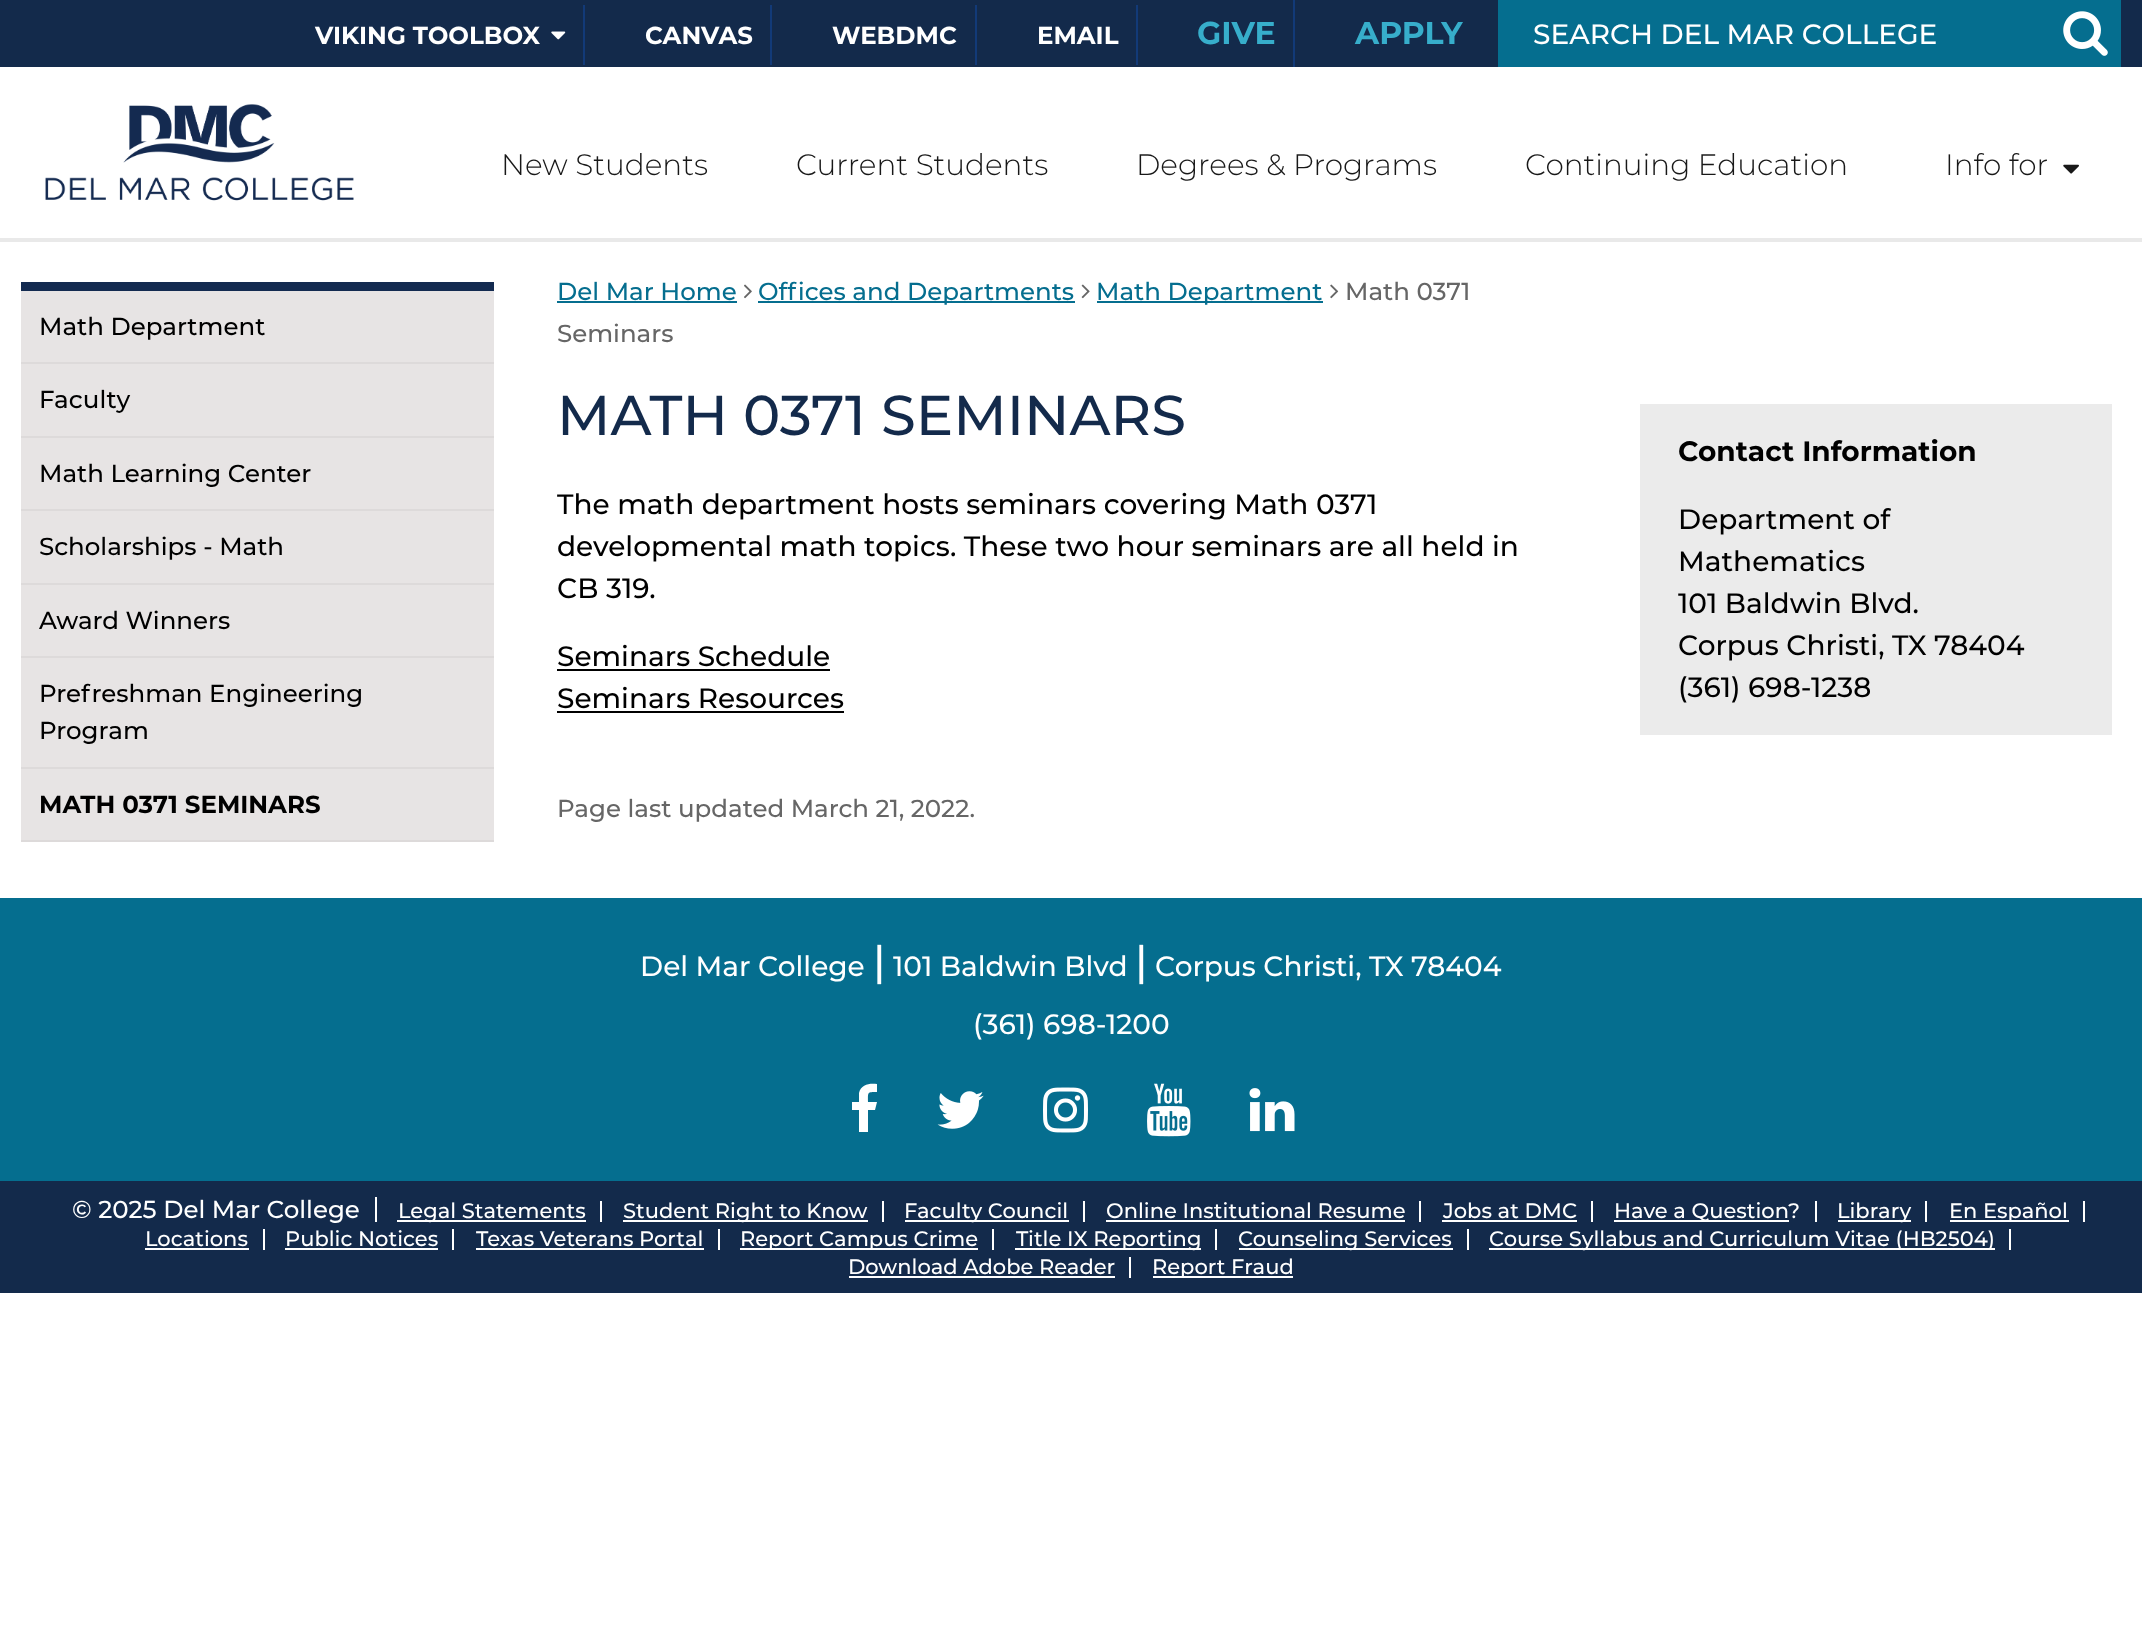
<svg xmlns="http://www.w3.org/2000/svg" width="2142" height="1645" viewBox="0 0 2142 1645">
  <rect width="100%" height="100%" fill="#ffffff"/>
  <rect x="0" y="238" width="2142" height="4" fill="#e9e9e9"/>
  <rect x="0" y="0" width="2142" height="67" fill="#132a4b"/>
  <rect x="583" y="5" width="2" height="60" fill="#123a78"/>
  <text x="315" y="44" font-family="Montserrat" font-size="24.5" font-weight="bold" fill="#ffffff">VIKING TOOLBOX</text>
  <image x="551" y="31" width="15" height="9" href="img1.png"/>
  <rect x="770" y="5" width="2" height="60" fill="#123a78"/>
  <text x="645" y="44" font-family="Montserrat" font-size="24.5" font-weight="bold" fill="#ffffff">CANVAS</text>
  <rect x="975" y="5" width="2" height="60" fill="#123a78"/>
  <text x="832" y="44" font-family="Montserrat" font-size="24.5" font-weight="bold" fill="#ffffff">WEBDMC</text>
  <rect x="1136" y="5" width="2" height="60" fill="#123a78"/>
  <text x="1037" y="44" font-family="Montserrat" font-size="24.5" font-weight="bold" fill="#ffffff">EMAIL</text>
  <rect x="1293" y="0" width="2" height="67" fill="#123a78"/>
  <text x="1197" y="44" font-family="Montserrat" font-size="31.5" font-weight="bold" fill="#37aecb">GIVE</text>
  <text x="1355" y="44" font-family="Montserrat" font-size="31.5" font-weight="bold" fill="#37aecb">APPLY</text>
  <rect x="1498" y="0" width="623" height="67" fill="#056e8f"/>
  <text x="1533" y="44" font-family="Montserrat" font-size="28" font-weight="500" fill="#ffffff">SEARCH DEL MAR COLLEGE</text>
  <image x="2063" y="11" width="45" height="45" href="img2.png"/>
  <image x="45" y="104" width="309" height="97" href="img3.png"/>
  <text x="501" y="175" font-family="Montserrat" font-size="29.5" font-weight="300" fill="#181818">New Students</text>
  <text x="796" y="175" font-family="Montserrat" font-size="29.5" font-weight="300" fill="#181818">Current Students</text>
  <text x="1136" y="175" font-family="Montserrat" font-size="29.5" font-weight="300" fill="#181818">Degrees &amp; Programs</text>
  <text x="1525" y="175" font-family="Montserrat" font-size="29.5" font-weight="300" fill="#181818">Continuing Education</text>
  <text x="1945" y="175" font-family="Montserrat" font-size="29.5" font-weight="300" fill="#181818">Info for</text>
  <image x="2063" y="164" width="16" height="10" href="img4.png"/>
  <rect x="21" y="291" width="473" height="549" fill="#e7e4e4"/>
  <rect x="21" y="282" width="473" height="9" fill="#132a50"/>
  <rect x="21" y="362" width="473" height="2" fill="#dddada"/>
  <text x="39" y="335" font-family="Montserrat" font-size="24.5" font-weight="500" fill="#000000">Math Department</text>
  <rect x="21" y="436" width="473" height="2" fill="#dddada"/>
  <text x="39" y="408" font-family="Montserrat" font-size="24.5" font-weight="500" fill="#000000">Faculty</text>
  <rect x="21" y="509" width="473" height="2" fill="#dddada"/>
  <text x="39" y="482" font-family="Montserrat" font-size="24.5" font-weight="500" fill="#000000">Math Learning Center</text>
  <rect x="21" y="583" width="473" height="2" fill="#dddada"/>
  <text x="39" y="555" font-family="Montserrat" font-size="24.5" font-weight="500" fill="#000000">Scholarships - Math</text>
  <rect x="21" y="656" width="473" height="2" fill="#dddada"/>
  <text x="39" y="629" font-family="Montserrat" font-size="24.5" font-weight="500" fill="#000000">Award Winners</text>
  <rect x="21" y="767" width="473" height="2" fill="#dddada"/>
  <text x="39" y="702" font-family="Montserrat" font-size="24.5" font-weight="500" fill="#000000">Prefreshman Engineering</text>
  <text x="39" y="739" font-family="Montserrat" font-size="24.5" font-weight="500" fill="#000000">Program</text>
  <rect x="21" y="840" width="473" height="2" fill="#dddada"/>
  <text x="39" y="813" font-family="Montserrat" font-size="24.5" font-weight="bold" fill="#000000">MATH 0371 SEMINARS</text>
  <text x="557" y="300" font-family="Montserrat" font-size="24.5" font-weight="500" fill="#056e8f">Del Mar Home</text>
  <rect x="557" y="301" width="180" height="2" fill="#056e8f"/>
  <image x="744" y="284" width="8" height="15" href="img5.png"/>
  <rect x="758" y="301" width="317" height="2" fill="#056e8f"/>
  <text x="758" y="300" font-family="Montserrat" font-size="24.5" font-weight="500" fill="#056e8f">Offices and Departments</text>
  <image x="1081" y="284" width="9" height="15" href="img6.png"/>
  <rect x="1097" y="301" width="226" height="2" fill="#056e8f"/>
  <text x="1096" y="300" font-family="Montserrat" font-size="24.5" font-weight="500" fill="#056e8f">Math Department</text>
  <image x="1330" y="284" width="9" height="15" href="img7.png"/>
  <text x="1345" y="300" font-family="Montserrat" font-size="24.5" font-weight="500" fill="#666666">Math 0371</text>
  <text x="557" y="342" font-family="Montserrat" font-size="24.5" font-weight="500" fill="#666666">Seminars</text>
  <text x="557" y="435" font-family="Montserrat" font-size="56" font-weight="500" fill="#132a4b">MATH 0371 SEMINARS</text>
  <text x="557" y="514" font-family="Montserrat" font-size="28" font-weight="500" fill="#000000">The math department hosts seminars covering Math 0371</text>
  <text x="557" y="556" font-family="Montserrat" font-size="28" font-weight="500" fill="#000000">developmental math topics. These two hour seminars are all held in</text>
  <text x="557" y="598" font-family="Montserrat" font-size="28" font-weight="500" fill="#000000">CB 319.</text>
  <text x="557" y="666" font-family="Montserrat" font-size="28" font-weight="500" fill="#000000">Seminars Schedule</text>
  <rect x="557" y="669" width="273" height="2" fill="#000000"/>
  <text x="557" y="708" font-family="Montserrat" font-size="28" font-weight="500" fill="#000000">Seminars Resources</text>
  <rect x="557" y="711" width="287" height="2" fill="#000000"/>
  <text x="557" y="817" font-family="Montserrat" font-size="24.5" font-weight="500" fill="#666666">Page last updated March 21, 2022.</text>
  <rect x="1640" y="404" width="472" height="331" fill="#ebebeb"/>
  <text x="1678" y="461" font-family="Montserrat" font-size="28" font-weight="bold" fill="#000000">Contact Information</text>
  <text x="1678" y="529" font-family="Montserrat" font-size="28" font-weight="500" fill="#000000">Department of</text>
  <text x="1678" y="571" font-family="Montserrat" font-size="28" font-weight="500" fill="#000000">Mathematics</text>
  <text x="1678" y="613" font-family="Montserrat" font-size="28" font-weight="500" fill="#000000">101 Baldwin Blvd.</text>
  <text x="1678" y="655" font-family="Montserrat" font-size="28" font-weight="500" fill="#000000">Corpus Christi, TX 78404</text>
  <text x="1678" y="697" font-family="Montserrat" font-size="28" font-weight="500" fill="#000000">(361) 698-1238</text>
  <rect x="0" y="898" width="2142" height="283" fill="#056e8f"/>
  <text x="640" y="976" font-family="Montserrat" font-size="28" font-weight="500" fill="#ffffff">Del Mar College</text>
  <text x="873" y="976" font-family="Montserrat" font-size="42" font-weight="500" fill="#ffffff">|</text>
  <text x="893" y="976" font-family="Montserrat" font-size="28" font-weight="500" fill="#ffffff">101 Baldwin Blvd</text>
  <text x="1135" y="976" font-family="Montserrat" font-size="42" font-weight="500" fill="#ffffff">|</text>
  <text x="1155" y="976" font-family="Montserrat" font-size="28" font-weight="500" fill="#ffffff">Corpus Christi, TX 78404</text>
  <text x="973" y="1034" font-family="Montserrat" font-size="28" font-weight="500" fill="#ffffff">(361) 698-1200</text>
  <path d="M877 1084V1092C867 1092 868 1092 868 1102H877L875 1110H868V1132H859V1110H852V1102H859V1093C861 1084 870 1083 877 1084Z" fill="#ffffff"/>
  <image x="937" y="1091" width="47" height="38" href="img8.png"/>
  <image x="1043" y="1087" width="45" height="46" href="img9.png"/>
  <image x="1147" y="1083" width="44" height="54" href="img10.png"/>
  <image x="1249" y="1088" width="46" height="44" href="img11.png"/>
  <rect x="0" y="1181" width="2142" height="112" fill="#132a4b"/>
  <rect x="375" y="1197" width="2" height="25" fill="#ffffff"/>
  <text x="72" y="1218" font-family="Montserrat" font-size="24.5" font-weight="500" fill="#ffffff">© 2025 Del Mar College</text>
  <rect x="600" y="1201" width="2" height="21" fill="#ffffff"/>
  <rect x="397" y="1220" width="189" height="2" fill="#ffffff"/>
  <text x="398" y="1218" font-family="Montserrat" font-size="21" font-weight="500" fill="#ffffff">Legal Statements</text>
  <rect x="882" y="1201" width="2" height="21" fill="#ffffff"/>
  <rect x="623" y="1220" width="245" height="2" fill="#ffffff"/>
  <text x="623" y="1218" font-family="Montserrat" font-size="21" font-weight="500" fill="#ffffff">Student Right to Know</text>
  <rect x="1083" y="1201" width="2" height="21" fill="#ffffff"/>
  <rect x="905" y="1220" width="164" height="2" fill="#ffffff"/>
  <text x="904" y="1218" font-family="Montserrat" font-size="21" font-weight="500" fill="#ffffff">Faculty Council</text>
  <rect x="1419" y="1201" width="2" height="21" fill="#ffffff"/>
  <text x="1106" y="1218" font-family="Montserrat" font-size="21" font-weight="500" fill="#ffffff">Online Institutional Resume</text>
  <rect x="1106" y="1220" width="299" height="2" fill="#ffffff"/>
  <rect x="1591" y="1201" width="2" height="21" fill="#ffffff"/>
  <text x="1443" y="1218" font-family="Montserrat" font-size="21" font-weight="500" fill="#ffffff">Jobs at DMC</text>
  <rect x="1442" y="1220" width="135" height="2" fill="#ffffff"/>
  <rect x="1815" y="1201" width="2" height="21" fill="#ffffff"/>
  <rect x="1614" y="1220" width="175" height="2" fill="#ffffff"/>
  <text x="1614" y="1218" font-family="Montserrat" font-size="21" font-weight="500" fill="#ffffff">Have a Question</text>
  <text x="1788" y="1218" font-family="Montserrat" font-size="21" font-weight="500" fill="#ffffff">?</text>
  <rect x="1925" y="1201" width="2" height="21" fill="#ffffff"/>
  <rect x="1838" y="1220" width="73" height="2" fill="#ffffff"/>
  <text x="1837" y="1218" font-family="Montserrat" font-size="21" font-weight="500" fill="#ffffff">Library</text>
  <rect x="2083" y="1201" width="2" height="21" fill="#ffffff"/>
  <rect x="1950" y="1220" width="119" height="2" fill="#ffffff"/>
  <text x="1949" y="1218" font-family="Montserrat" font-size="21" font-weight="500" fill="#ffffff">En Español</text>
  <rect x="263" y="1229" width="2" height="21" fill="#ffffff"/>
  <text x="145" y="1246" font-family="Montserrat" font-size="21" font-weight="500" fill="#ffffff">Locations</text>
  <rect x="145" y="1248" width="104" height="2" fill="#ffffff"/>
  <rect x="452" y="1229" width="2" height="21" fill="#ffffff"/>
  <text x="285" y="1246" font-family="Montserrat" font-size="21" font-weight="500" fill="#ffffff">Public Notices</text>
  <rect x="285" y="1248" width="153" height="2" fill="#ffffff"/>
  <rect x="718" y="1229" width="2" height="21" fill="#ffffff"/>
  <text x="476" y="1246" font-family="Montserrat" font-size="21" font-weight="500" fill="#ffffff">Texas Veterans Portal</text>
  <rect x="476" y="1248" width="228" height="2" fill="#ffffff"/>
  <rect x="992" y="1229" width="2" height="21" fill="#ffffff"/>
  <rect x="740" y="1248" width="238" height="2" fill="#ffffff"/>
  <text x="740" y="1246" font-family="Montserrat" font-size="21" font-weight="500" fill="#ffffff">Report Campus Crime</text>
  <rect x="1215" y="1229" width="2" height="21" fill="#ffffff"/>
  <rect x="1015" y="1248" width="186" height="2" fill="#ffffff"/>
  <text x="1016" y="1246" font-family="Montserrat" font-size="21" font-weight="500" fill="#ffffff">Title IX Reporting</text>
  <rect x="1467" y="1229" width="2" height="21" fill="#ffffff"/>
  <rect x="1239" y="1248" width="214" height="2" fill="#ffffff"/>
  <text x="1238" y="1246" font-family="Montserrat" font-size="21" font-weight="500" fill="#ffffff">Counseling Services</text>
  <rect x="2009" y="1229" width="2" height="21" fill="#ffffff"/>
  <rect x="1489" y="1248" width="506" height="2" fill="#ffffff"/>
  <text x="1489" y="1246" font-family="Montserrat" font-size="21" font-weight="500" fill="#ffffff">Course Syllabus and Curriculum Vitae (HB2504)</text>
  <rect x="1129" y="1257" width="2" height="21" fill="#ffffff"/>
  <text x="848" y="1274" font-family="Montserrat" font-size="21" font-weight="500" fill="#ffffff">Download Adobe Reader</text>
  <rect x="849" y="1276" width="266" height="2" fill="#ffffff"/>
  <rect x="1153" y="1276" width="140" height="2" fill="#ffffff"/>
  <text x="1152" y="1274" font-family="Montserrat" font-size="21" font-weight="500" fill="#ffffff">Report Fraud</text>
</svg>
